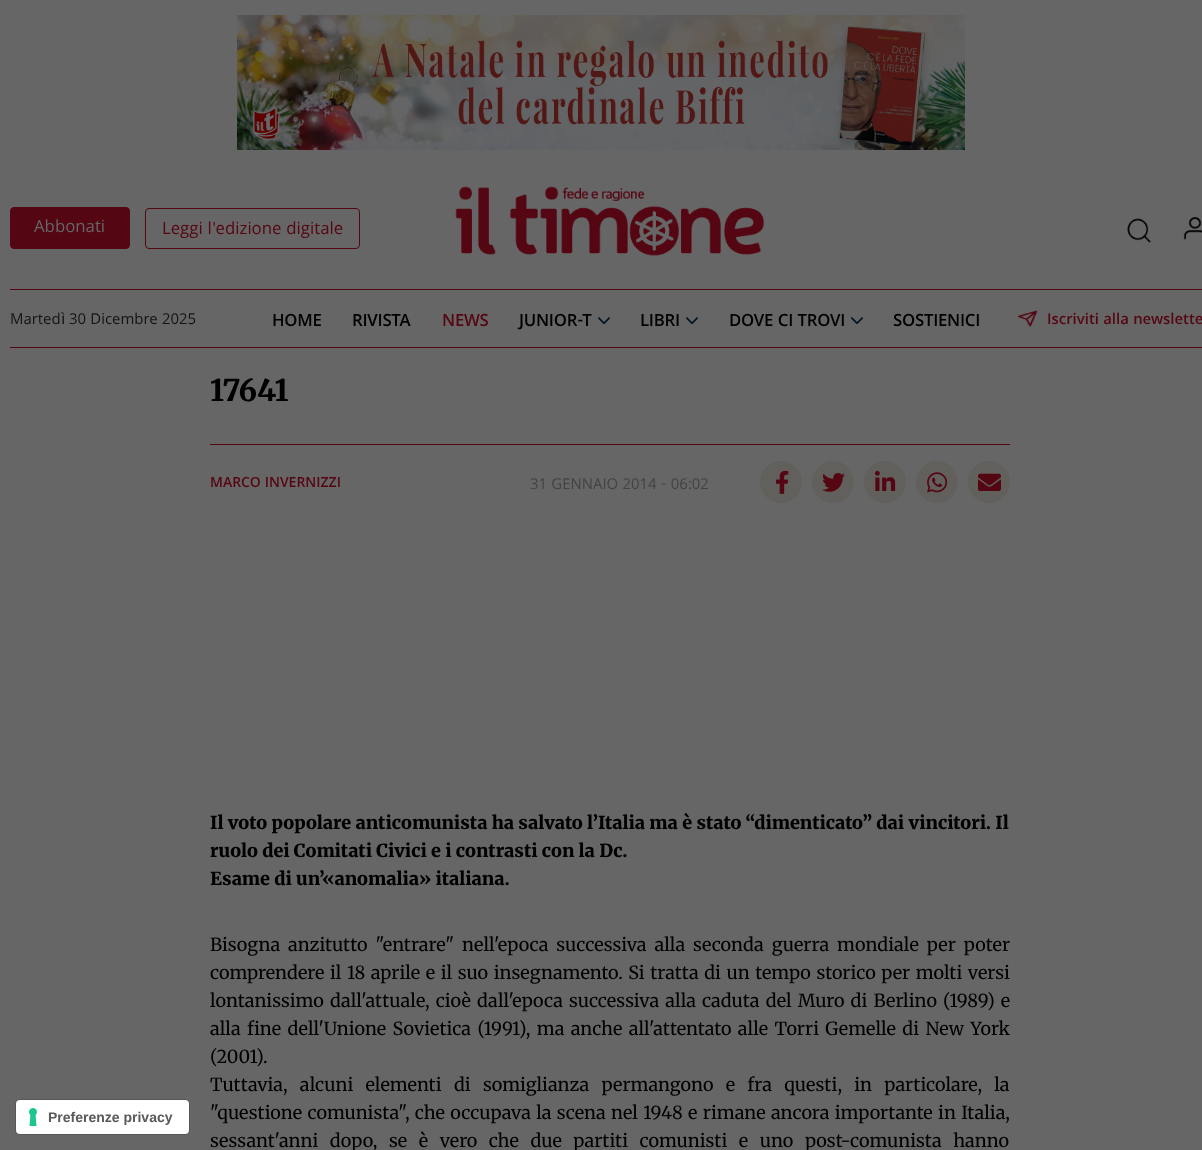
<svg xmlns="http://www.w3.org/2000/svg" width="1202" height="1150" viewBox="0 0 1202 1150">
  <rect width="100%" height="100%" fill="#666666"/>
  <image x="237" y="15" width="728" height="135" href="img1.png"/>
  <rect x="10" y="289" width="1192" height="1" fill="#550613"/>
  <rect x="10.5" y="207.5" width="119" height="41" rx="3.5" fill="#550613" stroke="#550613"/>
  <text x="34" y="232" font-family="Khula" font-size="18" fill="#666666">Abbonati</text>
  <rect x="145.5" y="208.5" width="214" height="40" rx="3.5" fill="none" stroke="#550613"/>
  <text x="162" y="234" font-family="Khula" font-size="18" fill="#550613">Leggi l'edizione digitale</text>
  <image x="455" y="186" width="310" height="70" href="img2.png"/>
  <image x="1127" y="218" width="24" height="25" href="img3.png"/>
  <image x="1183" y="216" width="19" height="24" href="img4.png"/>
  <rect x="10" y="347" width="1192" height="1" fill="#550613"/>
  <text x="10" y="324" font-family="Khula" font-size="16" fill="#141414">Marted</text>
  <text x="61" y="324" font-family="Liberation Sans" font-size="16" fill="#141414">ì</text>
  <text x="69" y="324" font-family="Khula" font-size="16" fill="#141414">30 Dicembre 2025</text>
  <text x="272" y="326" font-family="Khula" font-size="18" font-weight="600" letter-spacing="-0.25" fill="#000000">HOME</text>
  <text x="352" y="326" font-family="Khula" font-size="18" font-weight="600" letter-spacing="-0.25" fill="#000000">RIVISTA</text>
  <text x="442" y="326" font-family="Khula" font-size="18" font-weight="600" letter-spacing="-0.25" fill="#550613">NEWS</text>
  <text x="519" y="326" font-family="Khula" font-size="18" font-weight="600" letter-spacing="-0.25" fill="#000000">JUNIOR-T</text>
  <image x="598" y="317" width="12" height="7" href="img5.png"/>
  <text x="640" y="326" font-family="Khula" font-size="18" font-weight="600" letter-spacing="-0.25" fill="#000000">LIBRI</text>
  <image x="686" y="317" width="12" height="7" href="img5.png"/>
  <text x="729" y="326" font-family="Khula" font-size="18" font-weight="600" letter-spacing="-0.25" fill="#000000">DOVE CI TROVI</text>
  <image x="851" y="317" width="12" height="7" href="img5.png"/>
  <text x="893" y="326" font-family="Khula" font-size="18" font-weight="600" letter-spacing="-0.25" fill="#000000">SOSTIENICI</text>
  <image x="1017" y="310" width="21" height="17" href="img6.png"/>
  <text x="1047" y="324" font-family="Khula" font-size="16" font-weight="600" fill="#550613">Iscriviti alla newslette</text>
  <text x="210" y="401" font-family="Merriweather" font-size="30" font-weight="800" fill="#000000">17641</text>
  <rect x="210" y="444" width="800" height="1" fill="#550613"/>
  <text x="210" y="487" font-family="Khula" font-size="15" font-weight="600" fill="#550613">MARCO INVERNIZZI</text>
  <text x="530" y="489" font-family="Khula" font-size="16" fill="#434343">31 GENNAIO 2014 - 06:02</text>
  <circle cx="781" cy="482" r="21" fill="#62605d"/>
  <image x="776" y="470" width="13" height="24" href="img7.png"/>
  <circle cx="833" cy="482" r="21" fill="#62605d"/>
  <image x="822" y="473" width="23" height="19" href="img8.png"/>
  <circle cx="885" cy="482" r="21" fill="#62605d"/>
  <image x="875" y="470" width="21" height="21" href="img9.png"/>
  <circle cx="937" cy="482" r="21" fill="#62605d"/>
  <image x="927" y="472" width="21" height="21" href="img10.png"/>
  <circle cx="989" cy="482" r="21" fill="#62605d"/>
  <image x="978" y="473" width="23" height="18" href="img11.png"/>
  <text x="210" y="829" font-family="Merriweather" font-size="18" font-weight="900" fill="#000000">Il voto popolare anticomunista ha salvato l’Italia ma è stato “dimenticato” dai vincitori. Il</text>
  <text x="210" y="857" font-family="Merriweather" font-size="18" font-weight="900" fill="#000000">ruolo dei Comitati Civici e i contrasti con la Dc.</text>
  <text x="210" y="885" font-family="Merriweather" font-size="18" font-weight="900" fill="#000000">Esame di un’«anomalia» italiana.</text>
  <text x="210" y="951" word-spacing="3.75" font-family="Merriweather" font-size="18" fill="#000000">Bisogna anzitutto "entrare" nell'epoca successiva alla seconda guerra mondiale per poter</text>
  <text x="210" y="979" word-spacing="1.3" font-family="Merriweather" font-size="18" fill="#000000">comprendere il 18 aprile e il suo insegnamento. Si tratta di un tempo storico per molti versi</text>
  <text x="210" y="1007" word-spacing="1.9" font-family="Merriweather" font-size="18" fill="#000000">lontanissimo dall'attuale, cioè dall'epoca successiva alla caduta del Muro di Berlino (1989) e</text>
  <text x="210" y="1035" word-spacing="2.1" font-family="Merriweather" font-size="18" fill="#000000">alla fine dell'Unione Sovietica (1991), ma anche all'attentato alle Torri Gemelle di New York</text>
  <text x="210" y="1063" font-family="Merriweather" font-size="18" fill="#000000">(2001).</text>
  <text x="210" y="1091" word-spacing="8" font-family="Merriweather" font-size="18" fill="#000000">Tuttavia, alcuni elementi di somiglianza permangono e fra questi, in particolare, la</text>
  <text x="210" y="1119" word-spacing="1.1" font-family="Merriweather" font-size="18" fill="#000000">"questione comunista", che occupava la scena nel 1948 e rimane ancora importante in Italia,</text>
  <text x="210" y="1147" word-spacing="7.25" font-family="Merriweather" font-size="18" fill="#000000">sessant'anni dopo, se è vero che due partiti comunisti e uno post-comunista hanno</text>
  <rect x="15.5" y="1099.5" width="174" height="35" rx="4.5" fill="none" stroke="#575757"/>
  <rect x="16" y="1100" width="173" height="34" rx="4" fill="#ffffff"/>
  <image x="29" y="1108" width="8" height="18" href="img12.png"/>
  <text x="48" y="1122" font-family="Liberation Sans" font-size="14" font-weight="bold" fill="#595959">Preferenze privacy</text>
</svg>
